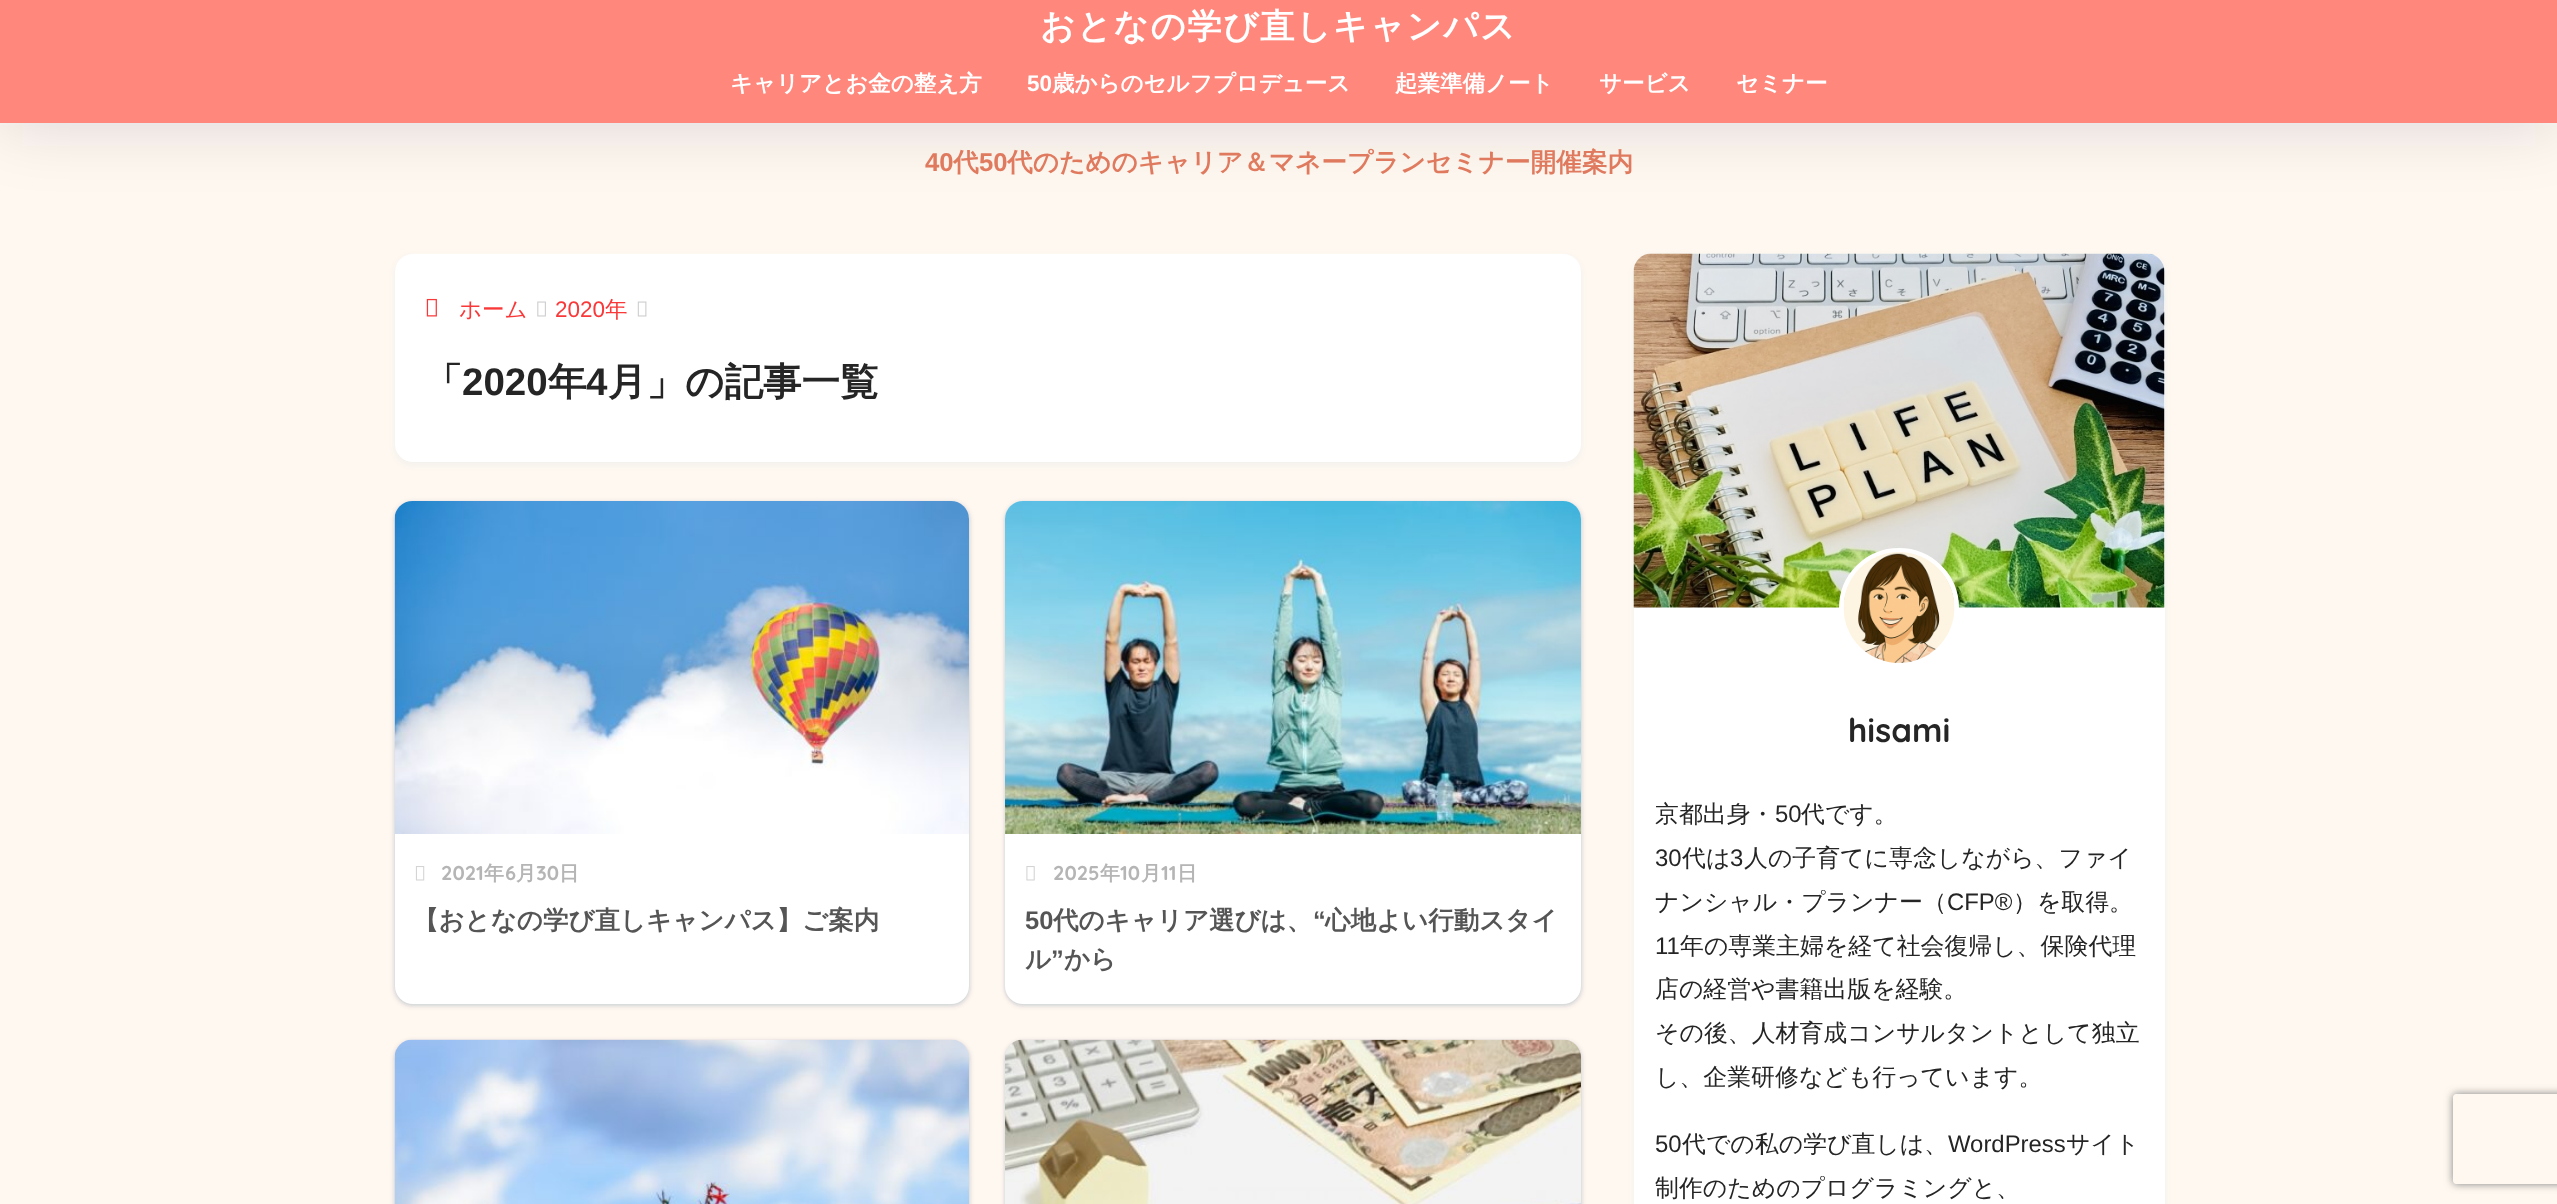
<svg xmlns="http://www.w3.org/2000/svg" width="2557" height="1204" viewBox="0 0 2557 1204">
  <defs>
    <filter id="blur1" x="-50%" y="-200%" width="200%" height="500%"><feGaussianBlur stdDeviation="34"/></filter>
    <filter id="blur2" x="-50%" y="-200%" width="200%" height="500%"><feGaussianBlur stdDeviation="3"/></filter>
    <filter id="blur3" x="-50%" y="-200%" width="200%" height="500%"><feGaussianBlur stdDeviation="2"/></filter>
    <filter id="blur4" x="-50%" y="-200%" width="200%" height="500%"><feGaussianBlur stdDeviation="1.5"/></filter>
    <clipPath id="clip1"><path d="M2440 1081H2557V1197H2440ZM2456 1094H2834C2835.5 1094 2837 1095.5 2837 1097V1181C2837 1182.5 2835.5 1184 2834 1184H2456C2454.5 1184 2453 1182.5 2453 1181V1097C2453 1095.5 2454.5 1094 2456 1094Z" clip-rule="evenodd"/></clipPath>
    <filter id="blur5" x="-50%" y="-200%" width="200%" height="500%"><feGaussianBlur stdDeviation="4"/></filter>
  </defs>
  <rect width="100%" height="100%" fill="#fff8f0"/>
  <rect x="0" y="123" width="2557" height="2" fill="#fffaf5"/>
  <rect x="0" y="0" width="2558" height="123" fill="#000c42" fill-opacity="0.15" filter="url(#blur1)"/>
  <rect x="0" y="0" width="2557" height="123" fill="#ff877c"/>
  <text x="1040" y="38" font-family="WenQuanYi Zen Hei" font-size="34.5" font-weight="bold" letter-spacing="1.5" fill="#ffffff">おとなの学び直しキャンパス</text>
  <text x="730" y="91" font-family="WenQuanYi Zen Hei" font-size="22.5" font-weight="bold" fill="#ffffff">キャリアとお金の整え方</text>
  <text x="1027" y="91" font-family="Liberation Sans" font-size="22.5" font-weight="bold" fill="#ffffff">50</text>
  <text x="1052" y="91" font-family="WenQuanYi Zen Hei" font-size="22.5" font-weight="bold" fill="#ffffff">歳からのセルフプロデュース</text>
  <text x="1395" y="91" font-family="WenQuanYi Zen Hei" font-size="22.5" font-weight="bold" fill="#ffffff">起業準備ノート</text>
  <text x="1599" y="91" font-family="WenQuanYi Zen Hei" font-size="22.5" font-weight="bold" fill="#ffffff">サービス</text>
  <text x="1736" y="91" font-family="WenQuanYi Zen Hei" font-size="22.5" font-weight="bold" fill="#ffffff">セミナー</text>
  <text x="925" y="171" font-family="Liberation Sans" font-size="25.7" font-weight="bold" fill="#e07a5f">40</text>
  <text x="953" y="171" font-family="WenQuanYi Zen Hei" font-size="25.7" font-weight="bold" fill="#e07a5f">代</text>
  <text x="979" y="171" font-family="Liberation Sans" font-size="25.7" font-weight="bold" fill="#e07a5f">50</text>
  <text x="1007" y="171" font-family="WenQuanYi Zen Hei" font-size="25.7" font-weight="bold" fill="#e07a5f">代のためのキャリア＆マネープランセミナー開催案内</text>
  <rect x="395" y="257" width="1186" height="208" rx="18" fill="#4385bb" fill-opacity="0.07" filter="url(#blur2)"/>
  <rect x="395" y="254" width="1186" height="208" rx="18" fill="#ffffff"/>
  <image x="426" y="298" width="11" height="19" href="img1.png"/>
  <text x="459" y="317" font-family="WenQuanYi Zen Hei" font-size="22.5" font-weight="500" fill="#f93939">ホーム</text>
  <image x="537" y="301" width="9" height="16" href="img2.png"/>
  <text x="555" y="317" font-family="Liberation Sans" font-size="22.5" fill="#f93939">2020</text>
  <text x="605" y="317" font-family="WenQuanYi Zen Hei" font-size="22.5" font-weight="500" fill="#f93939">年</text>
  <image x="637" y="301" width="10" height="16" href="img3.png"/>
  <text x="424" y="395" font-family="WenQuanYi Zen Hei" font-size="38.5" font-weight="bold" fill="#252525">「</text>
  <text x="462" y="395" font-family="Liberation Sans" font-size="38.5" font-weight="bold" fill="#252525">2020</text>
  <text x="548" y="395" font-family="WenQuanYi Zen Hei" font-size="38.5" font-weight="bold" fill="#252525">年</text>
  <text x="586" y="395" font-family="Liberation Sans" font-size="38.5" font-weight="bold" fill="#252525">4</text>
  <text x="608" y="395" font-family="WenQuanYi Zen Hei" font-size="38.5" font-weight="bold" fill="#252525">月」の記事一覧</text>
  <rect x="393" y="501" width="578" height="506" rx="20" fill="#182c54" fill-opacity="0.1" filter="url(#blur3)"/>
  <rect x="395" y="503" width="574" height="502" rx="18" fill="#182c54" fill-opacity="0.1" filter="url(#blur4)"/>
  <rect x="395" y="501" width="574" height="503" rx="18" fill="#ffffff"/>
  <image x="394" y="501" width="575" height="333" href="img4.png"/>
  <image x="415" y="866" width="10" height="15" href="img5.png"/>
  <text x="441" y="880" font-family="Quicksand" font-size="20" font-weight="bold" fill="#b5b5b5">2021</text>
  <text x="484" y="880" font-family="WenQuanYi Zen Hei" font-size="20" font-weight="bold" fill="#b5b5b5">年</text>
  <text x="505" y="880" font-family="Quicksand" font-size="20" font-weight="bold" fill="#b5b5b5">6</text>
  <text x="516" y="880" font-family="WenQuanYi Zen Hei" font-size="20" font-weight="bold" fill="#b5b5b5">月</text>
  <text x="536" y="880" font-family="Quicksand" font-size="20" font-weight="bold" fill="#b5b5b5">30</text>
  <text x="559" y="880" font-family="WenQuanYi Zen Hei" font-size="20" font-weight="bold" fill="#b5b5b5">日</text>
  <text x="413" y="929" font-family="WenQuanYi Zen Hei" font-size="25.5" font-weight="bold" fill="#555555">【おとなの学び直しキャンパス】ご案内</text>
  <rect x="1004" y="501" width="579" height="506" rx="20" fill="#182c54" fill-opacity="0.1" filter="url(#blur3)"/>
  <rect x="1005" y="503" width="576" height="502" rx="18" fill="#182c54" fill-opacity="0.1" filter="url(#blur4)"/>
  <rect x="1005" y="501" width="576" height="503" rx="18" fill="#ffffff"/>
  <image x="1005" y="501" width="576" height="333" href="img6.png"/>
  <image x="1026" y="866" width="9" height="15" href="img7.png"/>
  <text x="1053" y="880" font-family="Quicksand" font-size="20" font-weight="bold" fill="#b5b5b5">2025</text>
  <text x="1100" y="880" font-family="WenQuanYi Zen Hei" font-size="20" font-weight="bold" fill="#b5b5b5">年</text>
  <text x="1120" y="880" font-family="Quicksand" font-size="20" font-weight="bold" fill="#b5b5b5">10</text>
  <text x="1141" y="880" font-family="WenQuanYi Zen Hei" font-size="20" font-weight="bold" fill="#b5b5b5">月</text>
  <text x="1161" y="880" font-family="Quicksand" font-size="20" font-weight="bold" fill="#b5b5b5">11</text>
  <text x="1177" y="880" font-family="WenQuanYi Zen Hei" font-size="20" font-weight="bold" fill="#b5b5b5">日</text>
  <text x="1025" y="929" font-family="Liberation Sans" font-size="25.5" font-weight="bold" fill="#555555">50</text>
  <text x="1053" y="929" font-family="WenQuanYi Zen Hei" font-size="25.5" font-weight="bold" fill="#555555">代のキャリア選びは、</text>
  <text x="1313" y="929" font-family="Liberation Sans" font-size="25.5" font-weight="bold" fill="#555555">“</text>
  <text x="1325" y="929" font-family="WenQuanYi Zen Hei" font-size="25.5" font-weight="bold" fill="#555555">心地よい行動スタイ</text>
  <text x="1025" y="968" font-family="WenQuanYi Zen Hei" font-size="25.5" font-weight="bold" fill="#555555">ル</text>
  <text x="1051" y="968" font-family="Liberation Sans" font-size="25.5" font-weight="bold" fill="#555555">”</text>
  <text x="1064" y="968" font-family="WenQuanYi Zen Hei" font-size="25.5" font-weight="bold" fill="#555555">から</text>
  <rect x="393" y="1040" width="578" height="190" rx="20" fill="#182c54" fill-opacity="0.1" filter="url(#blur3)"/>
  <rect x="395" y="1041" width="574" height="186" rx="18" fill="#182c54" fill-opacity="0.1" filter="url(#blur4)"/>
  <image x="394" y="1039" width="575" height="165" href="img8.png"/>
  <rect x="1004" y="1040" width="579" height="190" rx="20" fill="#182c54" fill-opacity="0.1" filter="url(#blur3)"/>
  <rect x="1005" y="1041" width="576" height="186" rx="18" fill="#182c54" fill-opacity="0.1" filter="url(#blur4)"/>
  <image x="1005" y="1039" width="576" height="165" href="img9.png"/>
  <rect x="1634" y="257" width="531" height="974" rx="18" fill="#4385bb" fill-opacity="0.07" filter="url(#blur2)"/>
  <rect x="1634" y="254" width="531" height="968" rx="18" fill="#ffffff"/>
  <image x="1633" y="253" width="532" height="355" href="img10.png"/>
  <circle cx="1899" cy="608" r="57.5" fill="none" stroke="#ffffff" stroke-width="5"/>
  <image x="1843" y="552" width="112" height="111" href="img11.png"/>
  <text x="1848" y="742" font-family="Quicksand" font-size="33" font-weight="bold" fill="#252525">hisami</text>
  <text x="1655" y="822" font-family="WenQuanYi Zen Hei" font-size="23.9" font-weight="500" fill="#252525">京都出身・</text>
  <text x="1775" y="822" font-family="Liberation Sans" font-size="23.9" fill="#252525">50</text>
  <text x="1801" y="822" font-family="WenQuanYi Zen Hei" font-size="23.9" font-weight="500" fill="#252525">代です。</text>
  <text x="1655" y="866" font-family="Liberation Sans" font-size="23.9" fill="#252525">30</text>
  <text x="1682" y="866" font-family="WenQuanYi Zen Hei" font-size="23.9" font-weight="500" fill="#252525">代は</text>
  <text x="1730" y="866" font-family="Liberation Sans" font-size="23.9" fill="#252525">3</text>
  <text x="1744" y="866" font-family="WenQuanYi Zen Hei" font-size="23.9" font-weight="500" fill="#252525">人の子育てに専念しながら、ファイ</text>
  <text x="1655" y="910" font-family="WenQuanYi Zen Hei" font-size="23.9" font-weight="500" fill="#252525">ナンシャル・プランナー（</text>
  <text x="1947" y="910" font-family="Liberation Sans" font-size="23.9" fill="#252525">CFP®︎</text>
  <text x="2013" y="910" font-family="WenQuanYi Zen Hei" font-size="23.9" font-weight="500" fill="#252525">）を取得。</text>
  <text x="1655" y="954" font-family="Liberation Sans" font-size="23.9" fill="#252525">11</text>
  <text x="1680" y="954" font-family="WenQuanYi Zen Hei" font-size="23.9" font-weight="500" fill="#252525">年の専業主婦を経て社会復帰し、保険代理</text>
  <text x="1655" y="997" font-family="WenQuanYi Zen Hei" font-size="23.9" font-weight="500" fill="#252525">店の経営や書籍出版を経験。</text>
  <text x="1655" y="1041" font-family="WenQuanYi Zen Hei" font-size="23.9" font-weight="500" fill="#252525">その後、人材育成コンサルタントとして独立</text>
  <text x="1655" y="1085" font-family="WenQuanYi Zen Hei" font-size="23.9" font-weight="500" fill="#252525">し、企業研修なども行っています。</text>
  <text x="1655" y="1152" font-family="Liberation Sans" font-size="23.9" fill="#252525">50</text>
  <text x="1682" y="1152" font-family="WenQuanYi Zen Hei" font-size="23.9" font-weight="500" fill="#252525">代での私の学び直しは、</text>
  <text x="1948" y="1152" font-family="Liberation Sans" font-size="23.9" fill="#252525">WordPress</text>
  <text x="2066" y="1152" font-family="WenQuanYi Zen Hei" font-size="23.9" font-weight="500" fill="#252525">サイト</text>
  <text x="1655" y="1196" font-family="WenQuanYi Zen Hei" font-size="23.9" font-weight="500" fill="#252525">制作のためのプログラミングと、</text>
  <g clip-path="url(#clip1)">
    <rect x="2453" y="1094" width="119" height="90" rx="3" fill="#808080" filter="url(#blur5)"/>
  </g>
</svg>
